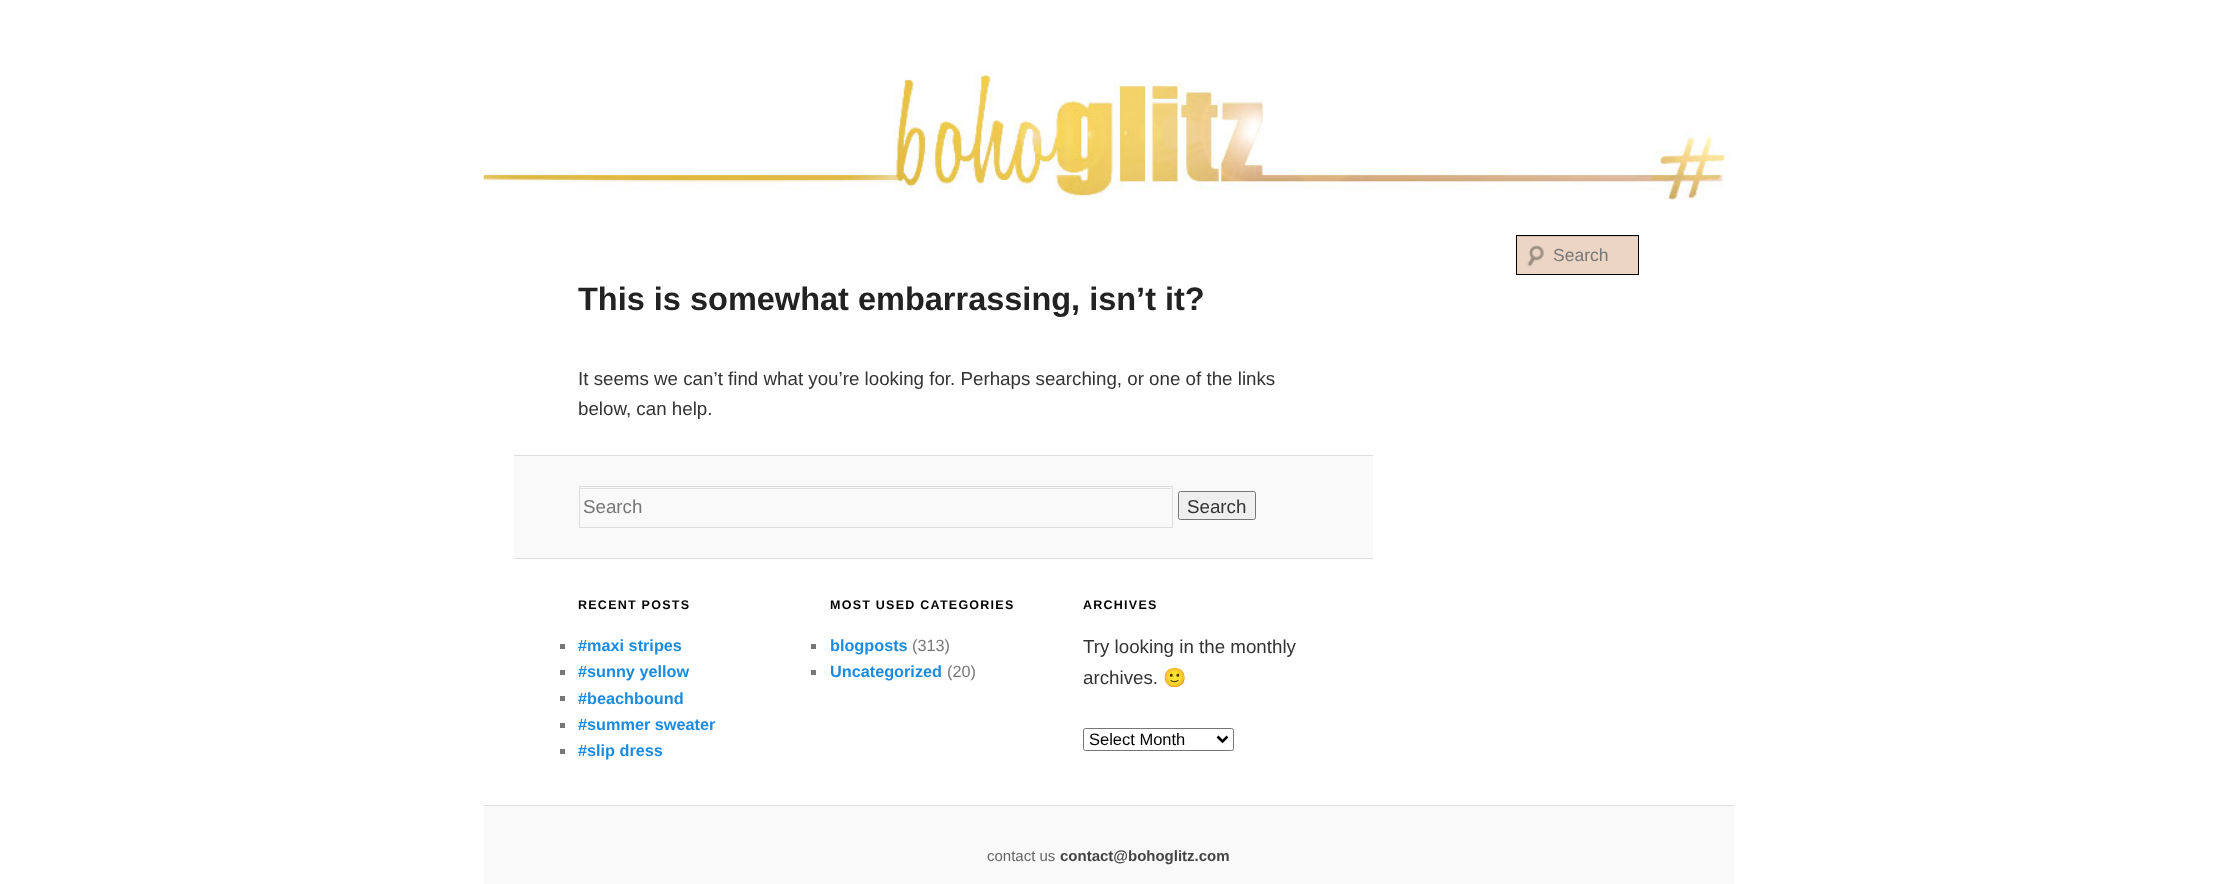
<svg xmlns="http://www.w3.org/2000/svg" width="2216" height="884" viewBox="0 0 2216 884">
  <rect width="100%" height="100%" fill="#ffffff"/>
  <image x="483" y="70" width="1251" height="131" href="img1.png"/>
  <rect x="1517" y="236" width="121" height="38" fill="#ecd5c5"/>
  <image x="1527" y="245" width="17" height="22" href="img2.png"/>
  <rect x="1518" y="236" width="120" height="1" fill="#d4c0b1"/>
  <rect x="1516.5" y="235.5" width="122" height="39" fill="none" stroke="#000000"/>
  <text x="1553" y="261" font-family="Liberation Sans" font-size="17.5" fill="#777777">Search</text>
  <text x="578" y="310" font-family="Liberation Sans" font-size="32.5" font-weight="bold" fill="#222222">This is somewhat embarrassing, isn’t it?</text>
  <text x="578" y="385" font-family="Liberation Sans" font-size="18.75" fill="#333333">It seems we can’t find what you’re looking for. Perhaps searching, or one of the links</text>
  <text x="578" y="415" font-family="Liberation Sans" font-size="18.75" fill="#333333">below, can help.</text>
  <rect x="514" y="456" width="859" height="102" fill="#f9f9f9"/>
  <rect x="514" y="455" width="859" height="1" fill="#dddddd"/>
  <rect x="514" y="558" width="859" height="1" fill="#dddddd"/>
  <rect x="580" y="488" width="591" height="1" fill="#e0e0e0"/>
  <rect x="579.5" y="486.5" width="593" height="41" fill="none" stroke="#dddddd"/>
  <text x="583" y="513" font-family="Liberation Sans" font-size="18.75" fill="#777777">Search</text>
  <rect x="1178.5" y="491.5" width="77" height="28" rx="2" fill="#efefef" stroke="#767676"/>
  <text x="1187" y="513" font-family="Liberation Sans" font-size="18.75" fill="#333333">Search</text>
  <text x="578" y="609" font-family="Liberation Sans" font-size="12.5" font-weight="bold" letter-spacing="1.25" fill="#000000">RECENT POSTS</text>
  <rect x="560" y="644" width="5" height="5" fill="#777777"/>
  <text x="578" y="651" font-family="Liberation Sans" font-size="16.25" font-weight="bold" fill="#1b8be0">#maxi stripes</text>
  <rect x="560" y="670" width="5" height="5" fill="#777777"/>
  <text x="578" y="677" font-family="Liberation Sans" font-size="16.25" font-weight="bold" fill="#1b8be0">#sunny yellow</text>
  <rect x="560" y="696" width="5" height="5" fill="#777777"/>
  <text x="578" y="704" font-family="Liberation Sans" font-size="16.25" font-weight="bold" fill="#1b8be0">#beachbound</text>
  <rect x="560" y="723" width="5" height="5" fill="#777777"/>
  <text x="578" y="730" font-family="Liberation Sans" font-size="16.25" font-weight="bold" fill="#1b8be0">#summer sweater</text>
  <rect x="560" y="749" width="5" height="5" fill="#777777"/>
  <text x="578" y="756" font-family="Liberation Sans" font-size="16.25" font-weight="bold" fill="#1b8be0">#slip dress</text>
  <text x="830" y="609" font-family="Liberation Sans" font-size="12.5" font-weight="bold" letter-spacing="1.25" fill="#000000">MOST USED CATEGORIES</text>
  <rect x="811" y="644" width="5" height="5" fill="#777777"/>
  <text x="830" y="651" font-family="Liberation Sans" font-size="16.25" font-weight="bold" fill="#1b8be0">blogposts</text>
  <text x="912" y="651" font-family="Liberation Sans" font-size="16.25" fill="#777777">(313)</text>
  <rect x="811" y="670" width="5" height="5" fill="#777777"/>
  <text x="830" y="677" font-family="Liberation Sans" font-size="16.25" font-weight="bold" fill="#1b8be0">Uncategorized</text>
  <text x="947" y="677" font-family="Liberation Sans" font-size="16.25" fill="#777777">(20)</text>
  <text x="1083" y="609" font-family="Liberation Sans" font-size="12.5" font-weight="bold" letter-spacing="1.25" fill="#000000">ARCHIVES</text>
  <text x="1083" y="653" font-family="Liberation Sans" font-size="18.75" fill="#333333">Try looking in the monthly</text>
  <text x="1083" y="684" font-family="Liberation Sans" font-size="18.75" fill="#333333">archives.</text>
  <text x="1163" y="684" font-family="Noto Color Emoji" font-size="18.75" fill="#333333">🙂</text>
  <rect x="1083.5" y="728.5" width="150" height="22" rx="2" fill="none" stroke="#767676"/>
  <path d="M1217.5 736.5L1222.5 741.5L1227.5 736.5" fill="none" stroke="#000000" stroke-width="2.5"/>
  <text x="1089" y="745" font-family="Liberation Sans" font-size="16.5" fill="#000000">Select Month</text>
  <rect x="484" y="806" width="1250" height="78" fill="#f9f9f9"/>
  <rect x="484" y="805" width="1250" height="1" fill="#dddddd"/>
  <text x="987" y="861" font-family="Liberation Sans" font-size="15" fill="#666666">contact us</text>
  <text x="1060" y="861" font-family="Liberation Sans" font-size="15" font-weight="bold" fill="#444444">contact@bohoglitz.com</text>
</svg>
